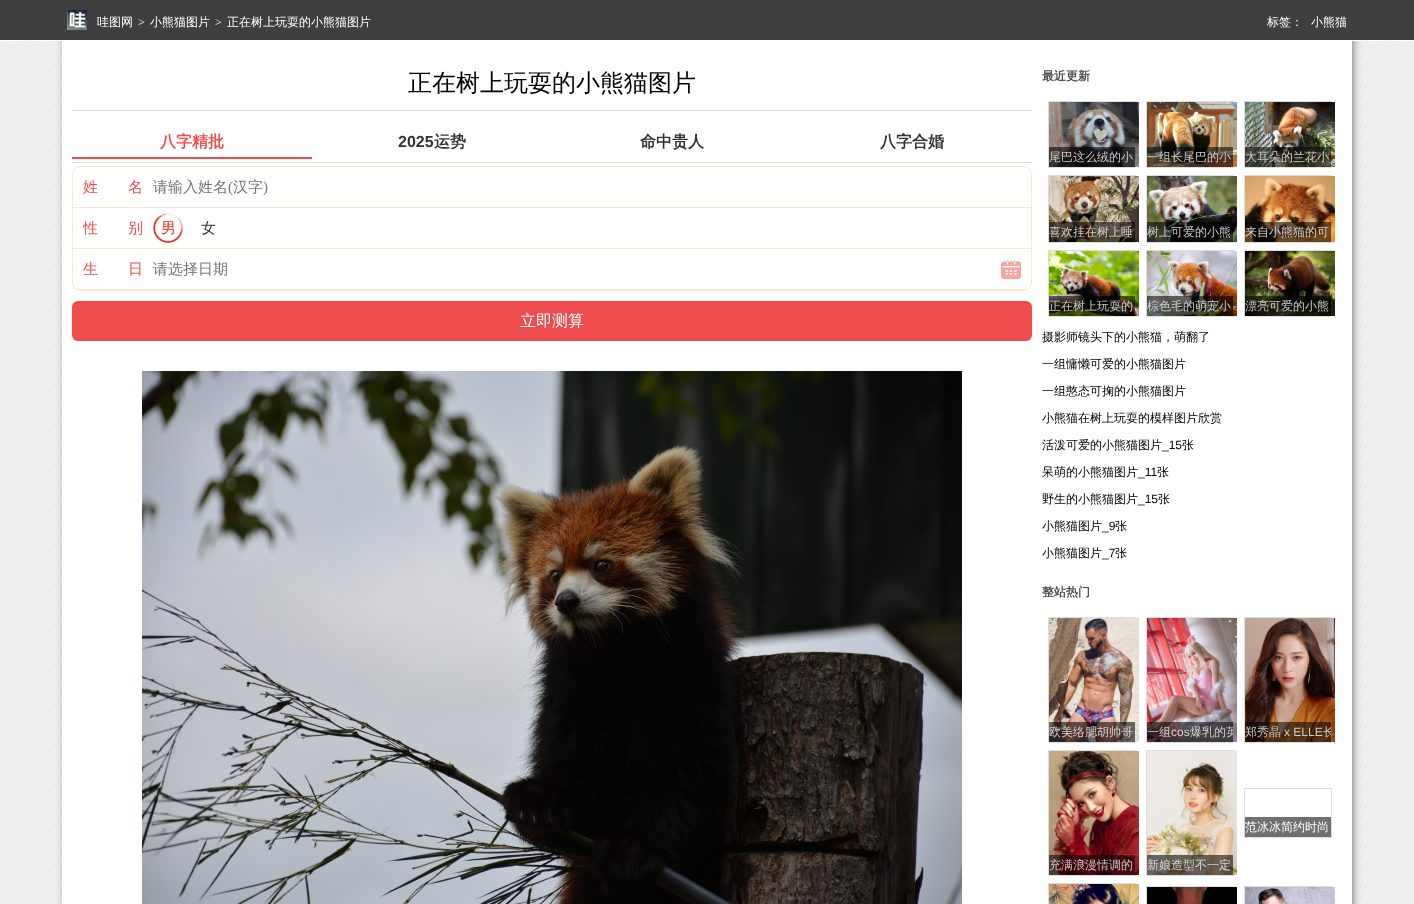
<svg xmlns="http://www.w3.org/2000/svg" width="1414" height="904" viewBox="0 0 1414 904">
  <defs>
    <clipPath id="clip1"><rect x="73" y="167" width="958" height="123" rx="7"/></clipPath>
    <clipPath id="clip2"><rect x="1147" y="722" width="86" height="20"/></clipPath>
    <clipPath id="clip3"><rect x="1245" y="722" width="86" height="20"/></clipPath>
  </defs>
  <rect width="100%" height="100%" fill="#ffffff"/>
  <image x="0" y="41" width="1414" height="863" href="img1.png"/>
  <rect x="0" y="0" width="1414" height="40" fill="#3f3f3f"/>
  <image x="67" y="10" width="20" height="20" href="img2.png"/>
  <text x="97" y="26" font-family="WenQuanYi Zen Hei" font-size="12" font-weight="500" fill="#ffffff">哇图网</text>
  <text x="138" y="26" font-family="Liberation Serif" font-size="12" fill="#ffffff">&gt;</text>
  <text x="150" y="26" font-family="WenQuanYi Zen Hei" font-size="12" font-weight="500" fill="#ffffff">小熊猫图片</text>
  <text x="215" y="26" font-family="Liberation Serif" font-size="12" fill="#ffffff">&gt;</text>
  <text x="227" y="26" font-family="WenQuanYi Zen Hei" font-size="12" font-weight="500" fill="#ffffff">正在树上玩耍的小熊猫图片</text>
  <text x="1267" y="26" font-family="WenQuanYi Zen Hei" font-size="12" font-weight="500" fill="#ffffff">标签：</text>
  <text x="1311" y="26" font-family="WenQuanYi Zen Hei" font-size="12" font-weight="500" fill="#ffffff">小熊猫</text>
  <rect x="62" y="41" width="1290" height="863" fill="#ffffff"/>
  <image x="52" y="41" width="1310" height="863" href="img3.png"/>
  <rect x="72" y="110" width="960" height="1" fill="#d7d7d7"/>
  <text x="408" y="91" font-family="WenQuanYi Zen Hei" font-size="24" font-weight="500" fill="#000000">正在树上玩耍的小熊猫图片</text>
  <rect x="72" y="162" width="960" height="1" fill="#dddddd"/>
  <rect x="72" y="157" width="240" height="2" fill="#ef4c4d"/>
  <text x="160" y="147" font-family="WenQuanYi Zen Hei" font-size="16" font-weight="bold" fill="#ef4c4d">八字精批</text>
  <text x="398" y="147" font-family="Liberation Sans" font-size="16" font-weight="bold" fill="#333333">2025</text>
  <text x="434" y="147" font-family="WenQuanYi Zen Hei" font-size="16" font-weight="bold" fill="#333333">运势</text>
  <text x="640" y="147" font-family="WenQuanYi Zen Hei" font-size="16" font-weight="bold" fill="#333333">命中贵人</text>
  <text x="880" y="147" font-family="WenQuanYi Zen Hei" font-size="16" font-weight="bold" fill="#333333">八字合婚</text>
  <rect x="72.5" y="166.5" width="959" height="124" rx="7.5" fill="none" stroke="#ffe4c8"/>
  <rect x="73" y="207" width="958" height="1" fill="#ffe4c8"/>
  <text x="83" y="192" font-family="WenQuanYi Zen Hei" font-size="15" font-weight="500" fill="#ef4c4d">姓</text>
  <text x="128" y="192" font-family="WenQuanYi Zen Hei" font-size="15" font-weight="500" fill="#ef4c4d">名</text>
  <text x="153" y="192" font-family="WenQuanYi Zen Hei" font-size="15" font-weight="500" fill="#757575">请输入姓名</text>
  <text x="228" y="192" font-family="Liberation Serif" font-size="15" fill="#757575">(</text>
  <text x="233" y="192" font-family="WenQuanYi Zen Hei" font-size="15" font-weight="500" fill="#757575">汉字</text>
  <text x="263" y="192" font-family="Liberation Serif" font-size="15" fill="#757575">)</text>
  <rect x="73" y="248" width="958" height="1" fill="#ffe4c8"/>
  <text x="83" y="233" font-family="WenQuanYi Zen Hei" font-size="15" font-weight="500" fill="#ef4c4d">性</text>
  <text x="128" y="233" font-family="WenQuanYi Zen Hei" font-size="15" font-weight="500" fill="#ef4c4d">别</text>
  <image x="153" y="213" width="30" height="30" href="img4.png"/>
  <text x="161" y="233" font-family="WenQuanYi Zen Hei" font-size="15" font-weight="500" fill="#e82e23">男</text>
  <text x="201" y="233" font-family="WenQuanYi Zen Hei" font-size="15" font-weight="500" fill="#333333">女</text>
  <g clip-path="url(#clip1)">
    <rect x="73" y="289" width="958" height="1" fill="#ffe4c8"/>
  </g>
  <text x="83" y="274" font-family="WenQuanYi Zen Hei" font-size="15" font-weight="500" fill="#ef4c4d">生</text>
  <text x="128" y="274" font-family="WenQuanYi Zen Hei" font-size="15" font-weight="500" fill="#ef4c4d">日</text>
  <image x="1001" y="260" width="20" height="19" href="img5.png"/>
  <text x="153" y="274" font-family="WenQuanYi Zen Hei" font-size="15" font-weight="500" fill="#757575">请选择日期</text>
  <rect x="72" y="301" width="960" height="40" rx="6" fill="#ef4c4d"/>
  <text x="520" y="326" font-family="WenQuanYi Zen Hei" font-size="16" font-weight="500" fill="#ffffff">立即测算</text>
  <image x="142" y="371" width="820" height="533" href="img6.png"/>
  <text x="1042" y="80" font-family="WenQuanYi Zen Hei" font-size="12" font-weight="bold" fill="#4b4b4b">最近更新</text>
  <rect x="1048.5" y="101.5" width="87" height="66" fill="none" stroke="#dddddd"/>
  <image x="1049" y="102" width="90" height="65" href="img7.png"/>
  <rect x="1049" y="147" width="86" height="20" fill="#000000" fill-opacity="0.56"/>
  <text x="1049" y="161" font-family="WenQuanYi Zen Hei" font-size="12" font-weight="500" fill="#c7c6c6">尾巴这么绒的小</text>
  <rect x="1146.5" y="101.5" width="87" height="66" fill="none" stroke="#dddddd"/>
  <image x="1147" y="102" width="90" height="65" href="img8.png"/>
  <rect x="1147" y="147" width="86" height="20" fill="#000000" fill-opacity="0.56"/>
  <text x="1147" y="161" font-family="WenQuanYi Zen Hei" font-size="12" font-weight="500" fill="#c7c6c6">一组长尾巴的小</text>
  <rect x="1244.5" y="101.5" width="87" height="66" fill="none" stroke="#dddddd"/>
  <image x="1245" y="102" width="90" height="65" href="img9.png"/>
  <rect x="1245" y="147" width="86" height="20" fill="#000000" fill-opacity="0.56"/>
  <text x="1245" y="161" font-family="WenQuanYi Zen Hei" font-size="12" font-weight="500" fill="#ccccc9">大耳朵的兰花小</text>
  <rect x="1048.5" y="175.5" width="87" height="67" fill="none" stroke="#dddddd"/>
  <image x="1049" y="176" width="90" height="66" href="img10.png"/>
  <rect x="1049" y="222" width="86" height="20" fill="#000000" fill-opacity="0.56"/>
  <text x="1049" y="236" font-family="WenQuanYi Zen Hei" font-size="12" font-weight="500" fill="#ccccc9">喜欢挂在树上睡</text>
  <rect x="1146.5" y="175.5" width="87" height="67" fill="none" stroke="#dddddd"/>
  <image x="1147" y="176" width="90" height="66" href="img11.png"/>
  <rect x="1147" y="222" width="86" height="20" fill="#000000" fill-opacity="0.56"/>
  <text x="1147" y="236" font-family="WenQuanYi Zen Hei" font-size="12" font-weight="500" fill="#c7c6c6">树上可爱的小熊</text>
  <rect x="1244.5" y="175.5" width="87" height="67" fill="none" stroke="#dddddd"/>
  <image x="1245" y="176" width="90" height="66" href="img12.png"/>
  <rect x="1245" y="222" width="86" height="20" fill="#000000" fill-opacity="0.56"/>
  <text x="1245" y="236" font-family="WenQuanYi Zen Hei" font-size="12" font-weight="500" fill="#ccccc9">来自小熊猫的可</text>
  <rect x="1048.5" y="250.5" width="87" height="66" fill="none" stroke="#dddddd"/>
  <image x="1049" y="251" width="90" height="65" href="img13.png"/>
  <rect x="1049" y="296" width="86" height="20" fill="#000000" fill-opacity="0.56"/>
  <text x="1049" y="310" font-family="WenQuanYi Zen Hei" font-size="12" font-weight="500" fill="#c7c6c6">正在树上玩耍的</text>
  <rect x="1146.5" y="250.5" width="87" height="66" fill="none" stroke="#dddddd"/>
  <image x="1147" y="251" width="90" height="65" href="img14.png"/>
  <rect x="1147" y="296" width="86" height="20" fill="#000000" fill-opacity="0.56"/>
  <text x="1147" y="310" font-family="WenQuanYi Zen Hei" font-size="12" font-weight="500" fill="#ccccc9">棕色毛的萌宠小</text>
  <rect x="1244.5" y="250.5" width="87" height="66" fill="none" stroke="#dddddd"/>
  <image x="1245" y="251" width="90" height="65" href="img15.png"/>
  <rect x="1245" y="296" width="86" height="20" fill="#000000" fill-opacity="0.56"/>
  <text x="1245" y="310" font-family="WenQuanYi Zen Hei" font-size="12" font-weight="500" fill="#c7c6c6">漂亮可爱的小熊</text>
  <text x="1042" y="341" font-family="WenQuanYi Zen Hei" font-size="12" font-weight="500" fill="#000000">摄影师镜头下的小熊猫，萌翻了</text>
  <text x="1042" y="368" font-family="WenQuanYi Zen Hei" font-size="12" font-weight="500" fill="#000000">一组慵懒可爱的小熊猫图片</text>
  <text x="1042" y="395" font-family="WenQuanYi Zen Hei" font-size="12" font-weight="500" fill="#000000">一组憨态可掬的小熊猫图片</text>
  <text x="1042" y="422" font-family="WenQuanYi Zen Hei" font-size="12" font-weight="500" fill="#000000">小熊猫在树上玩耍的模样图片欣赏</text>
  <text x="1042" y="449" font-family="WenQuanYi Zen Hei" font-size="12" font-weight="500" fill="#000000">活泼可爱的小熊猫图片</text>
  <text x="1162" y="449" font-family="Liberation Sans" font-size="12" fill="#000000">_15</text>
  <text x="1182" y="449" font-family="WenQuanYi Zen Hei" font-size="12" font-weight="500" fill="#000000">张</text>
  <text x="1042" y="476" font-family="WenQuanYi Zen Hei" font-size="12" font-weight="500" fill="#000000">呆萌的小熊猫图片</text>
  <text x="1138" y="476" font-family="Liberation Sans" font-size="12" fill="#000000">_11</text>
  <text x="1157" y="476" font-family="WenQuanYi Zen Hei" font-size="12" font-weight="500" fill="#000000">张</text>
  <text x="1042" y="503" font-family="WenQuanYi Zen Hei" font-size="12" font-weight="500" fill="#000000">野生的小熊猫图片</text>
  <text x="1138" y="503" font-family="Liberation Sans" font-size="12" fill="#000000">_15</text>
  <text x="1158" y="503" font-family="WenQuanYi Zen Hei" font-size="12" font-weight="500" fill="#000000">张</text>
  <text x="1042" y="530" font-family="WenQuanYi Zen Hei" font-size="12" font-weight="500" fill="#000000">小熊猫图片</text>
  <text x="1102" y="530" font-family="Liberation Sans" font-size="12" fill="#000000">_9</text>
  <text x="1115" y="530" font-family="WenQuanYi Zen Hei" font-size="12" font-weight="500" fill="#000000">张</text>
  <text x="1042" y="557" font-family="WenQuanYi Zen Hei" font-size="12" font-weight="500" fill="#000000">小熊猫图片</text>
  <text x="1102" y="557" font-family="Liberation Sans" font-size="12" fill="#000000">_7</text>
  <text x="1115" y="557" font-family="WenQuanYi Zen Hei" font-size="12" font-weight="500" fill="#000000">张</text>
  <text x="1042" y="596" font-family="WenQuanYi Zen Hei" font-size="12" font-weight="bold" fill="#4b4b4b">整站热门</text>
  <rect x="1048.5" y="617.5" width="87" height="125" fill="none" stroke="#dddddd"/>
  <image x="1049" y="618" width="90" height="124" href="img16.png"/>
  <rect x="1049" y="722" width="86" height="20" fill="#000000" fill-opacity="0.56"/>
  <text x="1049" y="736" font-family="WenQuanYi Zen Hei" font-size="12" font-weight="500" fill="#d3cfcd">欧美络腮胡帅哥</text>
  <rect x="1146.5" y="617.5" width="87" height="125" fill="none" stroke="#dddddd"/>
  <image x="1147" y="618" width="90" height="124" href="img17.png"/>
  <rect x="1147" y="722" width="86" height="20" fill="#000000" fill-opacity="0.56"/>
  <text x="1147" y="736" font-family="WenQuanYi Zen Hei" font-size="12" font-weight="500" fill="#ccccc9">一组</text>
  <text x="1171" y="736" font-family="Liberation Sans" font-size="12" fill="#d3cfcd">cos</text>
  <g clip-path="url(#clip2)">
    <text x="1190" y="736" font-family="WenQuanYi Zen Hei" font-size="12" font-weight="500" fill="#d3cfcd">爆乳的英</text>
  </g>
  <rect x="1244.5" y="617.5" width="87" height="125" fill="none" stroke="#dddddd"/>
  <image x="1245" y="618" width="90" height="124" href="img18.png"/>
  <rect x="1245" y="722" width="86" height="20" fill="#000000" fill-opacity="0.56"/>
  <text x="1245" y="736" font-family="WenQuanYi Zen Hei" font-size="12" font-weight="500" fill="#c7c6c6">郑秀晶</text>
  <text x="1284" y="736" font-family="Liberation Sans" font-size="12" fill="#d2cac3">x ELLE</text>
  <g clip-path="url(#clip3)">
    <text x="1323" y="736" font-family="WenQuanYi Zen Hei" font-size="12" font-weight="500" fill="#d2cac3">长</text>
  </g>
  <rect x="1244.5" y="788.5" width="87" height="49" fill="none" stroke="#dddddd"/>
  <rect x="1245" y="817" width="86" height="20" fill="#707070"/>
  <text x="1245" y="831" font-family="WenQuanYi Zen Hei" font-size="12" font-weight="500" fill="#ffffff">范冰冰简约时尚</text>
  <rect x="1048.5" y="750.5" width="87" height="125" fill="none" stroke="#dddddd"/>
  <image x="1049" y="751" width="90" height="124" href="img19.png"/>
  <rect x="1049" y="855" width="86" height="20" fill="#000000" fill-opacity="0.56"/>
  <text x="1049" y="869" font-family="WenQuanYi Zen Hei" font-size="12" font-weight="500" fill="#cec2c3">充满浪漫情调的</text>
  <rect x="1146.5" y="750.5" width="87" height="125" fill="none" stroke="#dddddd"/>
  <image x="1147" y="751" width="90" height="124" href="img20.png"/>
  <rect x="1147" y="855" width="86" height="20" fill="#000000" fill-opacity="0.56"/>
  <text x="1147" y="869" font-family="WenQuanYi Zen Hei" font-size="12" font-weight="500" fill="#d7d6d3">新娘造型不一定</text>
  <rect x="1048.5" y="883.5" width="87" height="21" fill="none" stroke="#dddddd"/>
  <image x="1049" y="884" width="90" height="20" href="img21.png"/>
  <rect x="1146.5" y="886.5" width="87" height="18" fill="none" stroke="#dddddd"/>
  <image x="1147" y="887" width="90" height="17" href="img22.png"/>
  <rect x="1244.5" y="886.5" width="87" height="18" fill="none" stroke="#dddddd"/>
  <image x="1245" y="887" width="90" height="17" href="img23.png"/>
</svg>
